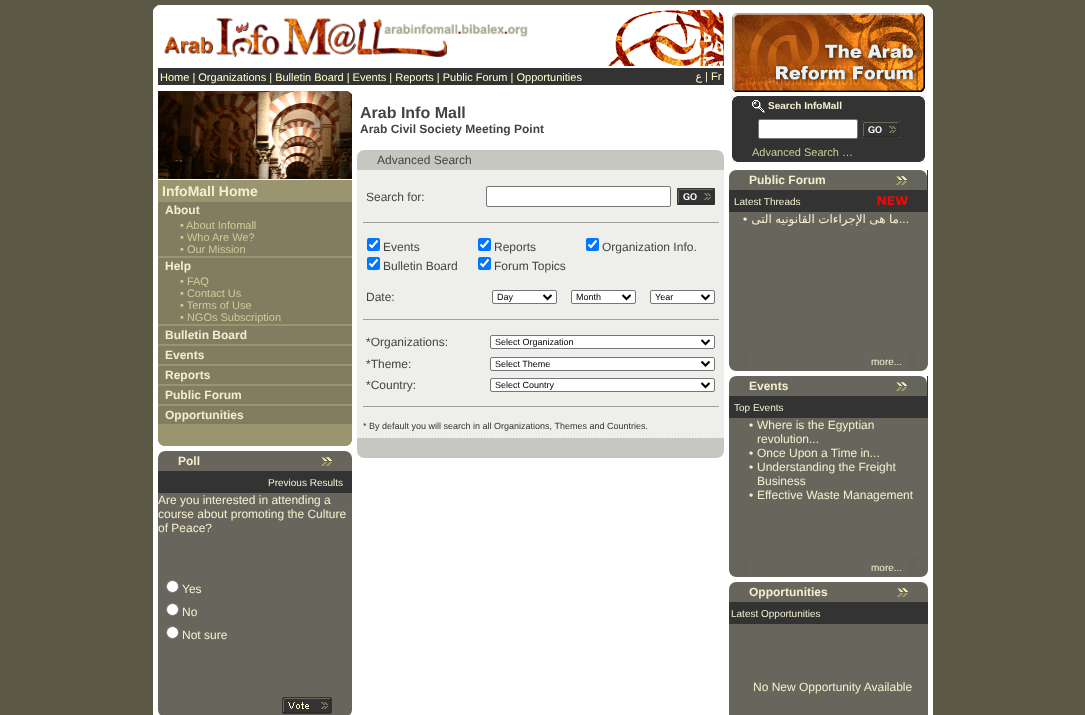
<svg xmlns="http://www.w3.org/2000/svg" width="1085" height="715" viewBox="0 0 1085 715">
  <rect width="100%" height="100%" fill="#5b5945"/>
  <rect x="153" y="5" width="780" height="710" fill="#ffffff"/>
  <image x="153" y="5" width="5" height="5" href="img1.png"/>
  <image x="928" y="5" width="5" height="5" href="img2.png"/>
  <image x="164" y="18" width="364" height="39" href="img3.png"/>
  <image x="608" y="10" width="116" height="56" href="img4.png"/>
  <rect x="158" y="68" width="566" height="17" fill="#333333"/>
  <text x="160" y="81" font-family="Liberation Sans" font-size="11" fill="#ffffcc">Home | Organizations | Bulletin Board | Events | Reports | Public Forum | Opportunities</text>
  <text x="702" y="80" font-family="DejaVu Sans" font-size="11" direction="rtl" fill="#ffffcc">ع</text>
  <text x="705" y="80" font-family="Liberation Sans" font-size="11" fill="#ffffcc">| Fr</text>
  <image x="158" y="91" width="194" height="88" href="img5.png"/>
  <rect x="158" y="424" width="194" height="22" fill="#9a956f"/>
  <rect x="158" y="202" width="194" height="222" fill="#827d60"/>
  <rect x="158" y="180" width="194" height="22" fill="#9a956f"/>
  <text x="162" y="196" font-family="Liberation Sans" font-size="14" font-weight="bold" fill="#f2efce">InfoMall Home</text>
  <text x="165" y="214" font-family="Liberation Sans" font-size="12" font-weight="bold" fill="#f2efce">About</text>
  <text x="180" y="229" font-family="Liberation Sans" font-size="11" fill="#cccc99">•</text>
  <text x="186" y="229" font-family="Liberation Sans" font-size="11" fill="#cccc99">About Infomall</text>
  <text x="180" y="241" font-family="Liberation Sans" font-size="11" fill="#cccc99">• Who Are We?</text>
  <text x="180" y="253" font-family="Liberation Sans" font-size="11" fill="#cccc99">• Our Mission</text>
  <rect x="158" y="256" width="194" height="2" fill="#9a956f"/>
  <text x="165" y="270" font-family="Liberation Sans" font-size="12" font-weight="bold" fill="#f2efce">Help</text>
  <text x="180" y="285" font-family="Liberation Sans" font-size="11" fill="#cccc99">• FAQ</text>
  <text x="180" y="297" font-family="Liberation Sans" font-size="11" fill="#cccc99">• Contact Us</text>
  <text x="180" y="309" font-family="Liberation Sans" font-size="11" fill="#cccc99">• Terms of Use</text>
  <text x="180" y="321" font-family="Liberation Sans" font-size="11" fill="#cccc99">• NGOs Subscription</text>
  <rect x="158" y="324" width="194" height="2" fill="#9a956f"/>
  <text x="165" y="339" font-family="Liberation Sans" font-size="12" font-weight="bold" fill="#f2efce">Bulletin Board</text>
  <rect x="158" y="344" width="194" height="2" fill="#9a956f"/>
  <text x="165" y="359" font-family="Liberation Sans" font-size="12" font-weight="bold" fill="#f2efce">Events</text>
  <rect x="158" y="364" width="194" height="2" fill="#9a956f"/>
  <text x="165" y="379" font-family="Liberation Sans" font-size="12" font-weight="bold" fill="#f2efce">Reports</text>
  <rect x="158" y="384" width="194" height="2" fill="#9a956f"/>
  <text x="165" y="399" font-family="Liberation Sans" font-size="12" font-weight="bold" fill="#f2efce">Public Forum</text>
  <rect x="158" y="404" width="194" height="2" fill="#9a956f"/>
  <text x="165" y="419" font-family="Liberation Sans" font-size="12" font-weight="bold" fill="#f2efce">Opportunities</text>
  <image x="158" y="441" width="5" height="5" href="img6.png"/>
  <image x="347" y="441" width="5" height="5" href="img7.png"/>
  <rect x="158" y="451" width="194" height="20" fill="#68655c"/>
  <image x="158" y="451" width="7" height="7" href="img8.png"/>
  <image x="345" y="451" width="7" height="7" href="img9.png"/>
  <text x="178" y="465" font-family="Liberation Sans" font-size="12" font-weight="bold" fill="#f2efce">Poll</text>
  <image x="321" y="457" width="11" height="9" href="img10.png"/>
  <rect x="158" y="471" width="194" height="22" fill="#333333"/>
  <text x="268" y="486" font-family="Liberation Sans" font-size="10" fill="#f2efce">Previous Results</text>
  <rect x="158" y="493" width="194" height="222" fill="#68655c"/>
  <text x="158" y="504" font-family="Liberation Sans" font-size="12" fill="#f2efce">Are you interested in attending a</text>
  <text x="158" y="518" font-family="Liberation Sans" font-size="12" fill="#f2efce">course about promoting the Culture</text>
  <text x="158" y="532" font-family="Liberation Sans" font-size="12" fill="#f2efce">of Peace?</text>
  <circle cx="172.5" cy="586.5" r="6" fill="#ffffff" stroke="#767676"/>
  <text x="182" y="593" font-family="Liberation Sans" font-size="12" fill="#f2efce">Yes</text>
  <circle cx="172.5" cy="609.5" r="6" fill="#ffffff" stroke="#767676"/>
  <text x="182" y="616" font-family="Liberation Sans" font-size="12" fill="#f2efce">No</text>
  <circle cx="172.5" cy="632.5" r="6" fill="#ffffff" stroke="#767676"/>
  <text x="182" y="639" font-family="Liberation Sans" font-size="12" fill="#f2efce">Not sure</text>
  <image x="158" y="710" width="3" height="5" href="img11.png"/>
  <image x="282" y="697" width="50" height="17" href="img12.png"/>
  <image x="349" y="710" width="3" height="5" href="img13.png"/>
  <text x="360" y="118" font-family="Liberation Sans" font-size="16" font-weight="bold" fill="#444444">Arab Info Mall</text>
  <text x="360" y="133" font-family="Liberation Sans" font-size="12" font-weight="bold" fill="#444444">Arab Civil Society Meeting Point</text>
  <rect x="357" y="150" width="367" height="20" fill="#c7c7c2"/>
  <image x="357" y="150" width="7" height="7" href="img14.png"/>
  <image x="717" y="150" width="7" height="7" href="img15.png"/>
  <text x="377" y="164" font-family="Liberation Sans" font-size="12" fill="#444444">Advanced Search</text>
  <rect x="357" y="170" width="367" height="268" fill="#eeeeea"/>
  <text x="366" y="201" font-family="Liberation Sans" font-size="12" fill="#444444">Search for:</text>
  <rect x="486.5" y="186.5" width="184" height="20" rx="1.5" fill="#ffffff" stroke="#767676"/>
  <image x="677" y="188" width="38" height="17" href="img16.png"/>
  <rect x="363" y="222" width="357" height="1" fill="#9f9f9f"/>
  <rect x="719" y="222" width="1" height="1" fill="#eeeeee"/>
  <rect x="367" y="238" width="13" height="13" rx="2" fill="#0075ff"/>
  <path d="M369.5 244.5L372 247L377.5 240.5" fill="none" stroke="#ffffff" stroke-width="2.1"/>
  <text x="383" y="251" font-family="Liberation Sans" font-size="12" fill="#444444">Events</text>
  <rect x="478" y="238" width="13" height="13" rx="2" fill="#0075ff"/>
  <path d="M480.5 244.5L483 247L488.5 240.5" fill="none" stroke="#ffffff" stroke-width="2.1"/>
  <text x="494" y="251" font-family="Liberation Sans" font-size="12" fill="#444444">Reports</text>
  <rect x="586" y="238" width="13" height="13" rx="2" fill="#0075ff"/>
  <path d="M588.5 244.5L591 247L596.5 240.5" fill="none" stroke="#ffffff" stroke-width="2.1"/>
  <text x="602" y="251" font-family="Liberation Sans" font-size="12" fill="#444444">Organization Info.</text>
  <rect x="367" y="257" width="13" height="13" rx="2" fill="#0075ff"/>
  <path d="M369.5 263.5L372 266L377.5 259.5" fill="none" stroke="#ffffff" stroke-width="2.1"/>
  <text x="383" y="270" font-family="Liberation Sans" font-size="12" fill="#444444">Bulletin Board</text>
  <rect x="478" y="257" width="13" height="13" rx="2" fill="#0075ff"/>
  <path d="M480.5 263.5L483 266L488.5 259.5" fill="none" stroke="#ffffff" stroke-width="2.1"/>
  <text x="494" y="270" font-family="Liberation Sans" font-size="12" fill="#444444">Forum Topics</text>
  <text x="366" y="301" font-family="Liberation Sans" font-size="12" fill="#444444">Date:</text>
  <rect x="492.5" y="290.5" width="64" height="13" rx="1.5" fill="#ffffff" stroke="#767676"/>
  <path d="M543.5 295L547.5 299L551.5 295" fill="none" stroke="#000000" stroke-width="2"/>
  <text x="497" y="300" font-family="Liberation Sans" font-size="9" fill="#000000">Day</text>
  <rect x="571.5" y="290.5" width="64" height="13" rx="1.5" fill="#ffffff" stroke="#767676"/>
  <path d="M622.5 295L626.5 299L630.5 295" fill="none" stroke="#000000" stroke-width="2"/>
  <text x="576" y="300" font-family="Liberation Sans" font-size="9" fill="#000000">Month</text>
  <rect x="650.5" y="290.5" width="64" height="13" rx="1.5" fill="#ffffff" stroke="#767676"/>
  <path d="M701.5 295L705.5 299L709.5 295" fill="none" stroke="#000000" stroke-width="2"/>
  <text x="655" y="300" font-family="Liberation Sans" font-size="9" fill="#000000">Year</text>
  <rect x="363" y="319" width="357" height="1" fill="#9f9f9f"/>
  <rect x="719" y="319" width="1" height="1" fill="#eeeeee"/>
  <text x="366" y="346" font-family="Liberation Sans" font-size="12" fill="#444444">*Organizations:</text>
  <rect x="490.5" y="335.5" width="224" height="13" rx="1.5" fill="#ffffff" stroke="#767676"/>
  <path d="M701.5 340L705.5 344L709.5 340" fill="none" stroke="#000000" stroke-width="2"/>
  <text x="495" y="345" font-family="Liberation Sans" font-size="9" fill="#000000">Select Organization</text>
  <text x="366" y="368" font-family="Liberation Sans" font-size="12" fill="#444444">*Theme:</text>
  <rect x="490.5" y="357.5" width="224" height="13" rx="1.5" fill="#ffffff" stroke="#767676"/>
  <path d="M701.5 361.5L705.5 365.5L709.5 361.5" fill="none" stroke="#000000" stroke-width="2"/>
  <text x="495" y="367" font-family="Liberation Sans" font-size="9" fill="#000000">Select Theme</text>
  <text x="366" y="389" font-family="Liberation Sans" font-size="12" fill="#444444">*Country:</text>
  <rect x="490.5" y="378.5" width="224" height="13" rx="1.5" fill="#ffffff" stroke="#767676"/>
  <path d="M701.5 383L705.5 387L709.5 383" fill="none" stroke="#000000" stroke-width="2"/>
  <text x="495" y="388" font-family="Liberation Sans" font-size="9" fill="#000000">Select Country</text>
  <rect x="363" y="406" width="357" height="1" fill="#9f9f9f"/>
  <rect x="719" y="406" width="1" height="1" fill="#eeeeee"/>
  <text x="363" y="429" font-family="Liberation Sans" font-size="9" fill="#333333">* By default you will search in all Organizations, Themes and Countries.</text>
  <image x="360" y="434" width="361" height="1" href="img17.png"/>
  <rect x="357" y="438" width="367" height="20" fill="#c7c7c2"/>
  <image x="357" y="451" width="7" height="7" href="img18.png"/>
  <image x="717" y="451" width="7" height="7" href="img19.png"/>
  <image x="732" y="13" width="193" height="79" href="img20.png"/>
  <rect x="732" y="96" width="193" height="66" fill="#333333"/>
  <image x="732" y="96" width="5" height="5" href="img21.png"/>
  <image x="920" y="96" width="5" height="5" href="img22.png"/>
  <image x="752" y="100" width="13" height="13" href="img23.png"/>
  <text x="768" y="109" font-family="Liberation Sans" font-size="10" font-weight="bold" fill="#f2efce">Search InfoMall</text>
  <rect x="758.5" y="119.5" width="99" height="19" rx="1.5" fill="#ffffff" stroke="#767676"/>
  <image x="862" y="121" width="38" height="17" href="img16.png"/>
  <image x="732" y="150" width="8" height="12" href="img24.png"/>
  <text x="752" y="156" font-family="Liberation Sans" font-size="11" fill="#cccc99">Advanced Search …</text>
  <image x="914" y="150" width="11" height="12" href="img25.png"/>
  <rect x="729" y="212" width="199" height="139" fill="#68655c"/>
  <rect x="927" y="170" width="1" height="20" fill="#333333"/>
  <image x="729" y="170" width="20" height="20" href="img26.png"/>
  <rect x="749" y="170" width="158" height="20" fill="#68655c"/>
  <text x="749" y="184" font-family="Liberation Sans" font-size="12" font-weight="bold" fill="#f2efce">Public Forum</text>
  <image x="896" y="176" width="11" height="9" href="img10.png"/>
  <image x="907" y="170" width="20" height="20" href="img27.png"/>
  <rect x="729" y="190" width="199" height="22" fill="#333333"/>
  <text x="734" y="205" font-family="Liberation Sans" font-size="10" fill="#f2efce">Latest Threads</text>
  <image x="877" y="196" width="31" height="9" href="img28.png"/>
  <text x="743" y="223" font-family="Liberation Sans" font-size="12" fill="#f2efce">•</text>
  <text x="899" y="223" word-spacing="-0.5" font-family="DejaVu Sans" font-size="12" direction="rtl" fill="#f2efce">ما هى الإجراءات القانونيه التى</text>
  <text x="899" y="223" font-family="Liberation Sans" font-size="12" fill="#f2efce">...</text>
  <image x="729" y="351" width="20" height="20" href="img29.png"/>
  <rect x="749" y="351" width="159" height="20" fill="#68655c"/>
  <text x="871" y="365" font-family="Liberation Sans" font-size="10" fill="#f2efce">more...</text>
  <image x="908" y="351" width="20" height="20" href="img30.png"/>
  <rect x="729" y="418" width="199" height="139" fill="#68655c"/>
  <rect x="927" y="376" width="1" height="20" fill="#333333"/>
  <image x="729" y="376" width="20" height="20" href="img26.png"/>
  <rect x="749" y="376" width="158" height="20" fill="#68655c"/>
  <text x="749" y="390" font-family="Liberation Sans" font-size="12" font-weight="bold" fill="#f2efce">Events</text>
  <image x="896" y="382" width="11" height="9" href="img10.png"/>
  <image x="907" y="376" width="20" height="20" href="img27.png"/>
  <rect x="729" y="396" width="199" height="22" fill="#333333"/>
  <text x="734" y="411" font-family="Liberation Sans" font-size="10" fill="#f2efce">Top Events</text>
  <text x="749" y="429" font-family="Liberation Sans" font-size="12" fill="#f2efce">•</text>
  <text x="757" y="429" font-family="Liberation Sans" font-size="12" fill="#f2efce">Where is the Egyptian</text>
  <text x="757" y="443" font-family="Liberation Sans" font-size="12" fill="#f2efce">revolution...</text>
  <text x="749" y="457" font-family="Liberation Sans" font-size="12" fill="#f2efce">•</text>
  <text x="757" y="457" font-family="Liberation Sans" font-size="12" fill="#f2efce">Once Upon a Time in...</text>
  <text x="749" y="471" font-family="Liberation Sans" font-size="12" fill="#f2efce">•</text>
  <text x="757" y="471" font-family="Liberation Sans" font-size="12" fill="#f2efce">Understanding the Freight</text>
  <text x="757" y="485" font-family="Liberation Sans" font-size="12" fill="#f2efce">Business</text>
  <text x="749" y="499" font-family="Liberation Sans" font-size="12" fill="#f2efce">•</text>
  <text x="757" y="499" font-family="Liberation Sans" font-size="12" fill="#f2efce">Effective Waste Management</text>
  <image x="729" y="557" width="20" height="20" href="img29.png"/>
  <rect x="749" y="557" width="159" height="20" fill="#68655c"/>
  <text x="871" y="571" font-family="Liberation Sans" font-size="10" fill="#f2efce">more...</text>
  <image x="908" y="557" width="20" height="20" href="img30.png"/>
  <rect x="729" y="582" width="199" height="20" fill="#68655c"/>
  <image x="729" y="582" width="7" height="7" href="img8.png"/>
  <image x="921" y="582" width="7" height="7" href="img9.png"/>
  <text x="749" y="596" font-family="Liberation Sans" font-size="12" font-weight="bold" fill="#f2efce">Opportunities</text>
  <image x="897" y="588" width="11" height="9" href="img10.png"/>
  <rect x="729" y="602" width="199" height="22" fill="#333333"/>
  <text x="731" y="617" font-family="Liberation Sans" font-size="10" fill="#f2efce">Latest Opportunities</text>
  <rect x="729" y="624" width="199" height="91" fill="#68655c"/>
  <text x="753" y="691" font-family="Liberation Sans" font-size="12" fill="#f2efce">No New Opportunity Available</text>
</svg>
